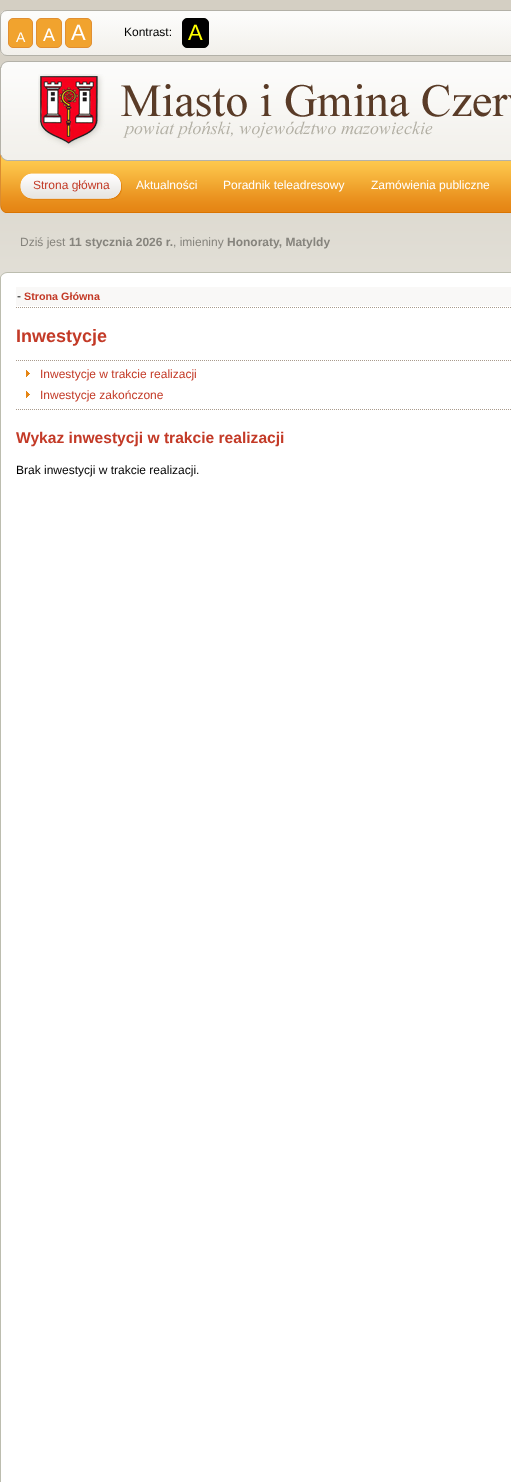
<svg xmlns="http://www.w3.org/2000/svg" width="511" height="1482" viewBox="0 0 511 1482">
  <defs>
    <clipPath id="clip1"><rect x="0" y="10" width="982" height="46" rx="7"/></clipPath>
    <linearGradient id="g1" gradientUnits="userSpaceOnUse" x1="491" y1="11" x2="491" y2="55"><stop offset="0" stop-color="#fcfcfb"/><stop offset="0.1" stop-color="#fcfcfb"/><stop offset="1" stop-color="#f2f0eb"/></linearGradient>
  </defs>
  <rect width="100%" height="100%" fill="#ffffff"/>
  <image x="0" y="0" width="511" height="278" href="img1.png"/>
  <g clip-path="url(#clip1)">
    <rect x="1" y="11" width="510" height="44" fill="url(#g1)"/>
  </g>
  <rect x="0.5" y="10.5" width="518" height="45" rx="6.5" fill="none" stroke="#b3b1a8"/>
  <rect x="8.5" y="18.5" width="24" height="29" rx="4.5" fill="#f1a32e" stroke="#e18f32"/>
  <text x="16" y="42" font-family="Liberation Sans" font-size="14" fill="#ffffff">A</text>
  <rect x="36.5" y="18.5" width="25" height="29" rx="4.5" fill="#f1a32e" stroke="#e18f32"/>
  <text x="43" y="41" font-family="Liberation Sans" font-size="18" fill="#ffffff">A</text>
  <rect x="65.5" y="18.5" width="26" height="29" rx="4.5" fill="#f1a32e" stroke="#e18f32"/>
  <text x="71" y="40" font-family="Liberation Sans" font-size="22" fill="#ffffff">A</text>
  <text x="124" y="36" font-family="Liberation Sans" font-size="12" fill="#000000">Kontrast:</text>
  <rect x="182.5" y="18.5" width="26" height="29" rx="4.5" fill="#000000" stroke="#000000"/>
  <text x="188" y="40" font-family="Liberation Sans" font-size="22" fill="#ffff00">A</text>
  <image x="0" y="154" width="511" height="59" href="img4.png"/>
  <image x="0" y="61" width="511" height="100" href="img2.png"/>
  <image x="38" y="74" width="473" height="74" href="img3.png"/>
  <image x="109" y="173" width="13" height="27" href="img5.png"/>
  <image x="20" y="173" width="89" height="27" href="img6.png"/>
  <text x="33" y="189" font-family="Liberation Sans" font-size="12" fill="#c33a27">Strona główna</text>
  <text x="136" y="189" font-family="Liberation Sans" font-size="12" fill="#ffffff">Aktualności</text>
  <text x="223" y="189" font-family="Liberation Sans" font-size="12" fill="#ffffff">Poradnik teleadresowy</text>
  <text x="371" y="189" font-family="Liberation Sans" font-size="12" fill="#ffffff">Zamówienia publiczne</text>
  <text x="20" y="246" font-family="Liberation Sans" font-size="12" fill="#86847d">Dziś jest</text>
  <text x="69" y="246" font-family="Liberation Sans" font-size="12" font-weight="bold" fill="#86847d">11 stycznia 2026 r.</text>
  <text x="173" y="246" font-family="Liberation Sans" font-size="12" fill="#86847d">, imieniny</text>
  <text x="227" y="246" font-family="Liberation Sans" font-size="12" font-weight="bold" fill="#86847d">Honoraty, Matyldy</text>
  <image x="0" y="272" width="511" height="7" href="img7.png"/>
  <rect x="0" y="279" width="1" height="1203" fill="#bcbdaf"/>
  <path d="M16 307.5H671" fill="none" stroke="#a99b8d" stroke-dasharray="1 1"/>
  <rect x="16" y="287" width="495" height="19" fill="#f9f8f7"/>
  <text x="17" y="300" font-family="Liberation Sans" font-size="12" fill="#000000">-</text>
  <text x="24" y="300" font-family="Liberation Sans" font-size="10.75" font-weight="bold" fill="#c33a27">Strona Główna</text>
  <text x="16" y="342" font-family="Liberation Sans" font-size="18" font-weight="bold" fill="#c33a27">Inwestycje</text>
  <path d="M16 360.5H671" fill="none" stroke="#a99b8d" stroke-dasharray="1 1"/>
  <path d="M16 409.5H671" fill="none" stroke="#a99b8d" stroke-dasharray="1 1"/>
  <image x="26" y="370" width="4" height="7" href="img8.png"/>
  <text x="40" y="378" font-family="Liberation Sans" font-size="12" fill="#c33a27">Inwestycje w trakcie realizacji</text>
  <image x="26" y="391" width="4" height="7" href="img8.png"/>
  <text x="40" y="399" font-family="Liberation Sans" font-size="12" fill="#c33a27">Inwestycje zakończone</text>
  <text x="16" y="443" font-family="Liberation Sans" font-size="15.6" font-weight="bold" fill="#c33a27">Wykaz inwestycji w trakcie realizacji</text>
  <text x="16" y="474" font-family="Liberation Sans" font-size="12" fill="#000000">Brak inwestycji w trakcie realizacji.</text>
</svg>
